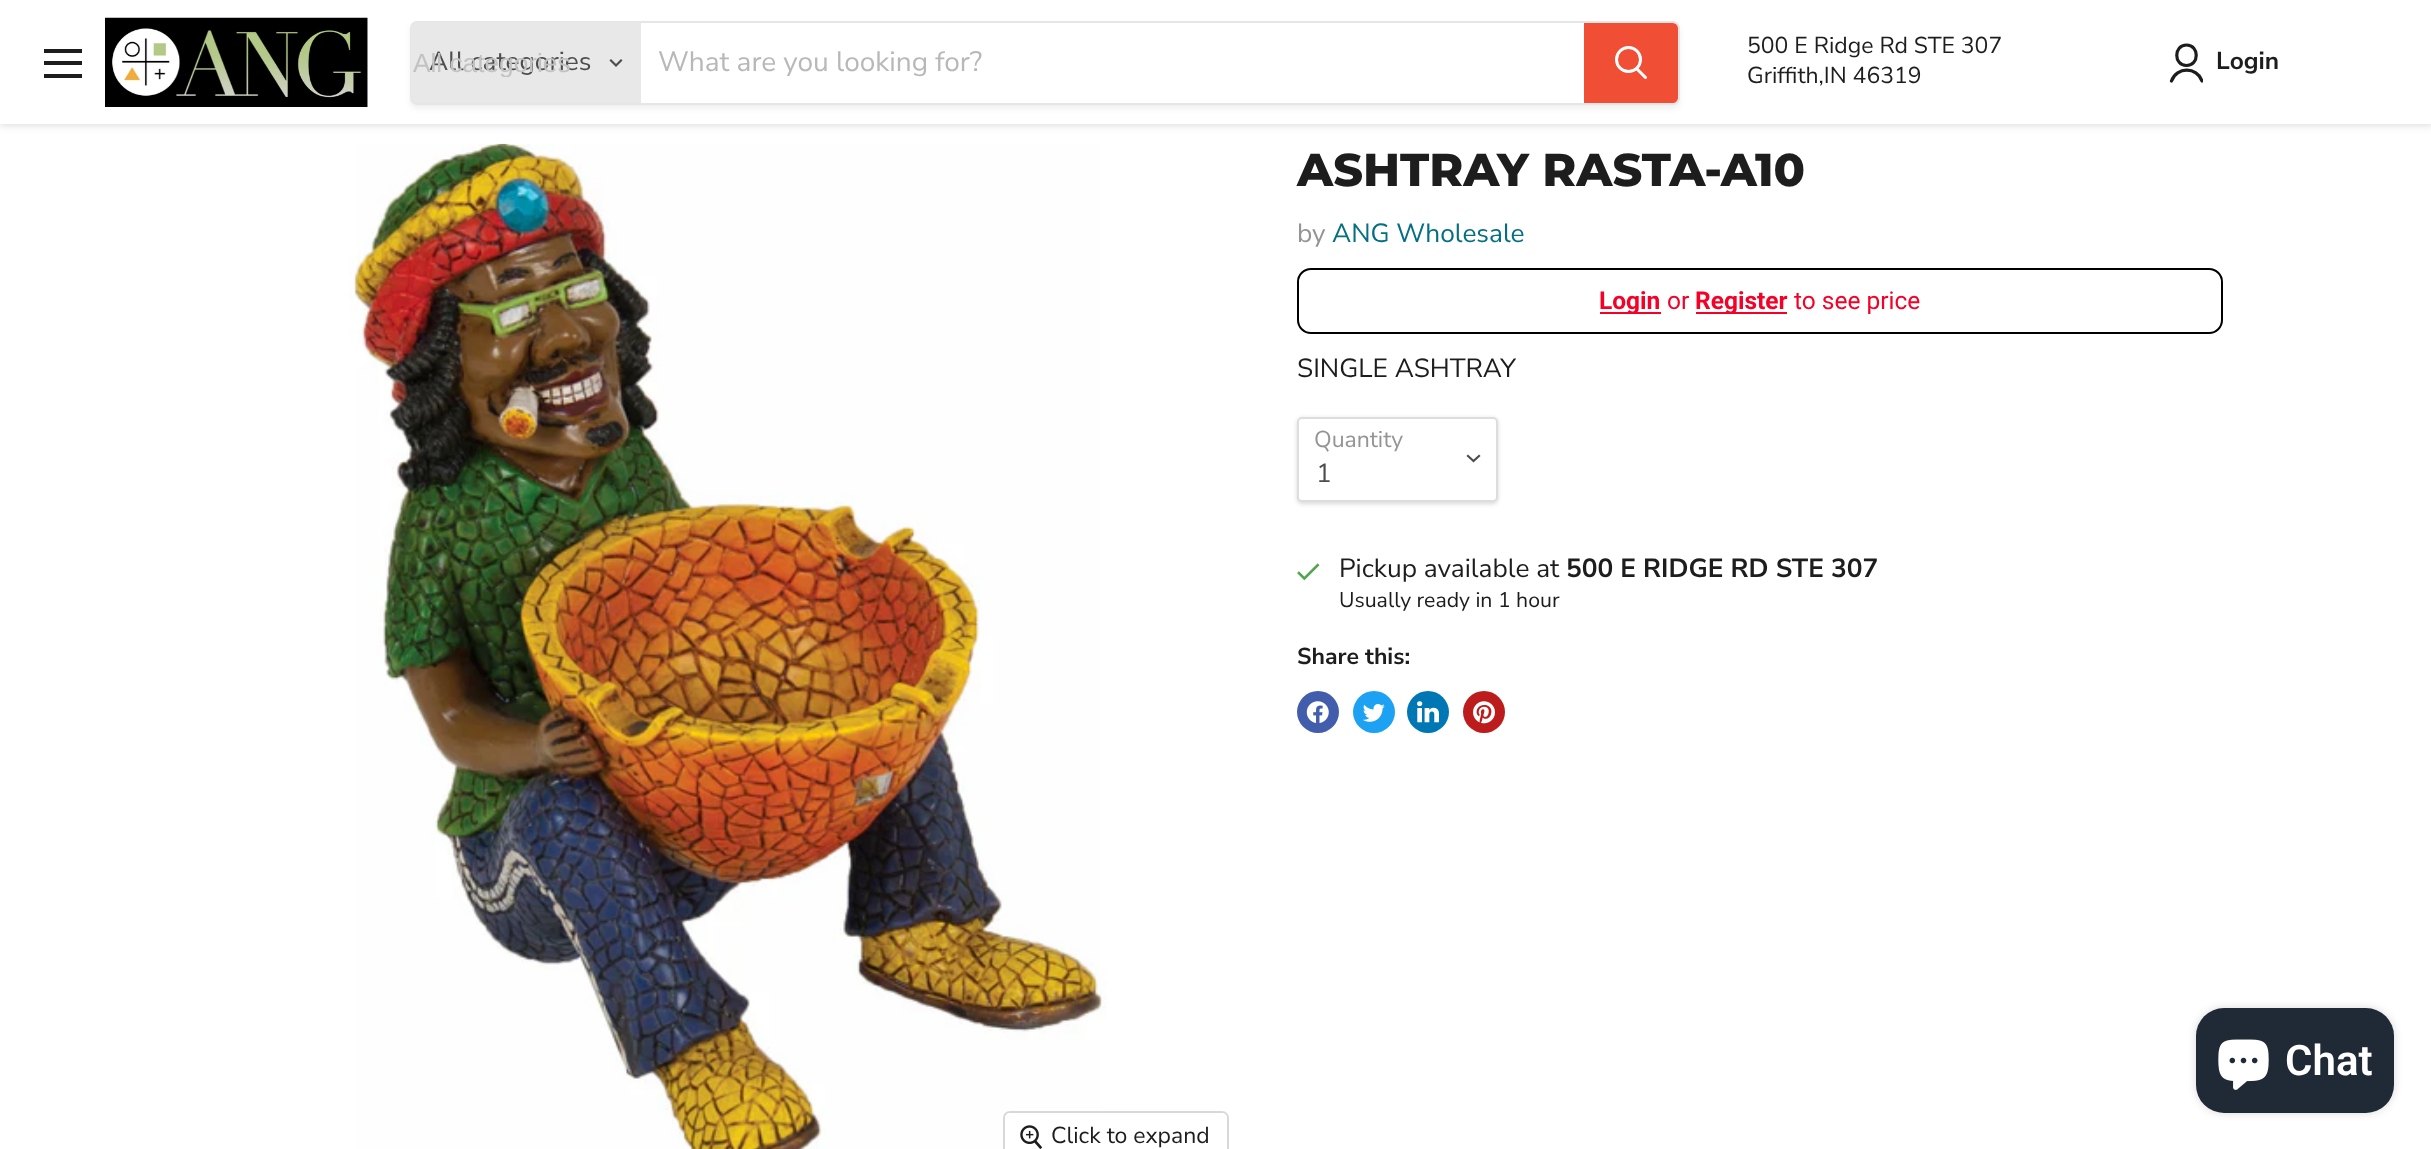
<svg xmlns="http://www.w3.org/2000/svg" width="2431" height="1149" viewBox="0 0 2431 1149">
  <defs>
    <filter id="blur1" x="-50%" y="-200%" width="200%" height="500%"><feGaussianBlur stdDeviation="3.5"/></filter>
    <clipPath id="clip1"><path d="M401 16H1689V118H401ZM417 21H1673C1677 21 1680 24 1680 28V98C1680 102 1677 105 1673 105H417C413 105 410 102 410 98V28C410 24 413 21 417 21Z" clip-rule="evenodd"/></clipPath>
    <filter id="blur2" x="-50%" y="-200%" width="200%" height="500%"><feGaussianBlur stdDeviation="2.5"/></filter>
    <clipPath id="clip2"><rect x="413" y="47" width="226" height="30"/></clipPath>
    <clipPath id="clip3"><rect x="2168" y="42" width="35" height="42"/></clipPath>
    <filter id="blur3" x="-50%" y="-200%" width="200%" height="500%"><feGaussianBlur stdDeviation="2"/></filter>
    <filter id="blur4" x="-50%" y="-200%" width="200%" height="500%"><feGaussianBlur stdDeviation="4.5"/></filter>
  </defs>
  <rect width="100%" height="100%" fill="#ffffff"/>
  <rect x="0" y="2" width="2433" height="124" fill="#808080" fill-opacity="0.25" filter="url(#blur1)"/>
  <rect x="0" y="0" width="2431" height="124" fill="#ffffff"/>
  <rect x="44" y="49" width="38" height="4" fill="#1d1d1d"/>
  <rect x="44" y="61" width="38" height="4" fill="#1d1d1d"/>
  <rect x="44" y="74" width="38" height="4" fill="#1d1d1d"/>
  <image x="105" y="17" width="263" height="90" href="img1.png"/>
  <g clip-path="url(#clip1)">
    <rect x="410" y="25" width="1270" height="84" rx="7" fill="#808080" fill-opacity="0.11" filter="url(#blur2)"/>
  </g>
  <rect x="411" y="22" width="1268" height="82" rx="6" fill="none" stroke="#808080" stroke-opacity="0.2" stroke-width="2"/>
  <path d="M416 23H641V103H416C413 103 411 101 411 98V28C411 25 413 23 416 23Z" fill="#e8e8e8"/>
  <text x="429" y="70" font-family="Nunito Sans" font-size="26.25" fill="#4d4d4d">All categories</text>
  <g clip-path="url(#clip2)">
    <text x="413" y="72" font-family="Liberation Sans" font-size="26.25" fill="#c2c2c2">All categories</text>
  </g>
  <path d="M616 65.5L621 60.5M616 65.5L611 60.5" fill="none" stroke="#4d4d4d" stroke-width="2.2" stroke-linecap="square"/>
  <text x="658" y="71" font-family="Nunito Sans" font-size="28" fill="#b8b8b8">What are you looking for?</text>
  <path d="M1585 24H1673C1675 24 1677 26 1677 28V98C1677 100 1675 102 1673 102H1585Z" fill="#f04f36" stroke="#f04f36" stroke-width="2"/>
  <path d="M1645.5 77.5L1637 69" fill="none" stroke="#ffffff" stroke-width="3" stroke-linecap="round"/>
  <circle cx="1628.5" cy="59.5" r="12" fill="none" stroke="#ffffff" stroke-width="3"/>
  <text x="1747" y="53" font-family="Nunito Sans" font-size="23" fill="#1d1d1d">500 E Ridge Rd STE 307</text>
  <text x="1747" y="83" font-family="Nunito Sans" font-size="23" fill="#1d1d1d">Griffith,IN 46319</text>
  <path d="M2186.5 65.5C2199.5 65.5 2199.5 45 2186.5 45C2173.5 45 2173.5 65.5 2186.5 65.5Z" fill="none" stroke="#1d1d1d" stroke-width="3.2" stroke-linecap="round" stroke-linejoin="round"/>
  <g clip-path="url(#clip3)">
    <path d="M2202 81C2197 66.5 2176.5 66.5 2171.5 81" fill="none" stroke="#1d1d1d" stroke-width="3.2" stroke-linecap="round" stroke-linejoin="round"/>
  </g>
  <text x="2216" y="69" font-family="Nunito Sans" font-size="24.5" font-weight="bold" fill="#1d1d1d">Login</text>
  <text x="1297" y="186" font-family="Montserrat" font-size="46" font-weight="800" fill="#1d1d1d">ASHTRAY RASTA-A10</text>
  <text x="1297" y="242" font-family="Nunito Sans" font-size="26.25" fill="#949494">by</text>
  <text x="1332" y="242" font-family="Nunito Sans" font-size="26.25" fill="#046e82">ANG Wholesale</text>
  <rect x="1298" y="269" width="924" height="64" rx="13" fill="none" stroke="#000000" stroke-width="2"/>
  <rect x="1600" y="312" width="61" height="2" fill="#f50027"/>
  <text x="1599" y="309" font-family="Roboto" font-size="24.5" font-weight="bold" fill="#f50027">Login</text>
  <text x="1667" y="309" font-family="Roboto" font-size="24.5" fill="#f50027">or</text>
  <rect x="1696" y="312" width="91" height="2" fill="#f50027"/>
  <text x="1695" y="309" font-family="Roboto" font-size="24.5" font-weight="bold" fill="#f50027">Register</text>
  <text x="1794" y="309" font-family="Roboto" font-size="24.5" fill="#f50027">to see price</text>
  <text x="1297" y="377" font-family="Nunito Sans" font-size="26.25" fill="#1d1d1d">SINGLE ASHTRAY</text>
  <rect x="1297" y="418" width="201" height="86" rx="5" fill="#000000" fill-opacity="0.15" filter="url(#blur3)"/>
  <rect x="1298" y="418" width="199" height="83" rx="4" fill="#ffffff" stroke="#dddddd" stroke-width="2"/>
  <text x="1314" y="447" font-family="Nunito Sans" font-size="23" fill="#949494">Quantity</text>
  <path d="M1473.5 461L1479 456M1473.5 461L1468 456" fill="none" stroke="#4d4d4d" stroke-width="2.2" stroke-linecap="square"/>
  <text x="1316" y="482" font-family="Nunito Sans" font-size="26.25" fill="#4d4d4d">1</text>
  <image x="1297" y="563" width="23" height="18" href="img2.png"/>
  <text x="1339" y="577" font-family="Nunito Sans" font-size="26.25" fill="#1d1d1d">Pickup available at</text>
  <text x="1566" y="577" font-family="Nunito Sans" font-size="26.25" font-weight="bold" fill="#1d1d1d">500 E RIDGE RD STE 307</text>
  <text x="1339" y="607" font-family="Nunito Sans" font-size="21.25" fill="#1d1d1d">Usually ready in 1 hour</text>
  <text x="1297" y="664" font-family="Nunito Sans" font-size="23" font-weight="bold" fill="#1d1d1d">Share this:</text>
  <circle cx="1318" cy="712" r="21" fill="#425dab"/>
  <image x="1306" y="701" width="23" height="22" href="img3.png"/>
  <circle cx="1374" cy="712" r="21" fill="#1da1f2"/>
  <image x="1363" y="704" width="22" height="18" href="img4.png"/>
  <circle cx="1428" cy="712" r="21" fill="#0077b5"/>
  <image x="1417" y="701" width="22" height="22" href="img5.png"/>
  <circle cx="1484" cy="712" r="21" fill="#bd1c1c"/>
  <image x="1473" y="701" width="22" height="23" href="img6.png"/>
  <image x="349" y="143" width="758" height="1006" href="img7.png"/>
  <rect x="1004" y="1112" width="224" height="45" rx="6" fill="none" stroke="#d8d8d8" stroke-width="2"/>
  <rect x="1005" y="1113" width="222" height="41" rx="5" fill="#ffffff" fill-opacity="0.9"/>
  <image x="1020" y="1125" width="23" height="24" href="img8.png"/>
  <text x="1051" y="1143" font-family="Nunito Sans" font-size="23" fill="#1d1d1d">Click to expand</text>
  <rect x="2196" y="1008" width="198" height="105" rx="28" fill="#000000" fill-opacity="0.15" filter="url(#blur4)"/>
  <rect x="2196" y="1008" width="198" height="105" rx="28" fill="#202a36"/>
  <image x="2218" y="1039" width="51" height="51" href="img9.png"/>
  <text x="2285" y="1075" font-family="Roboto" font-size="42" font-weight="600" fill="#ffffff">Chat</text>
</svg>
